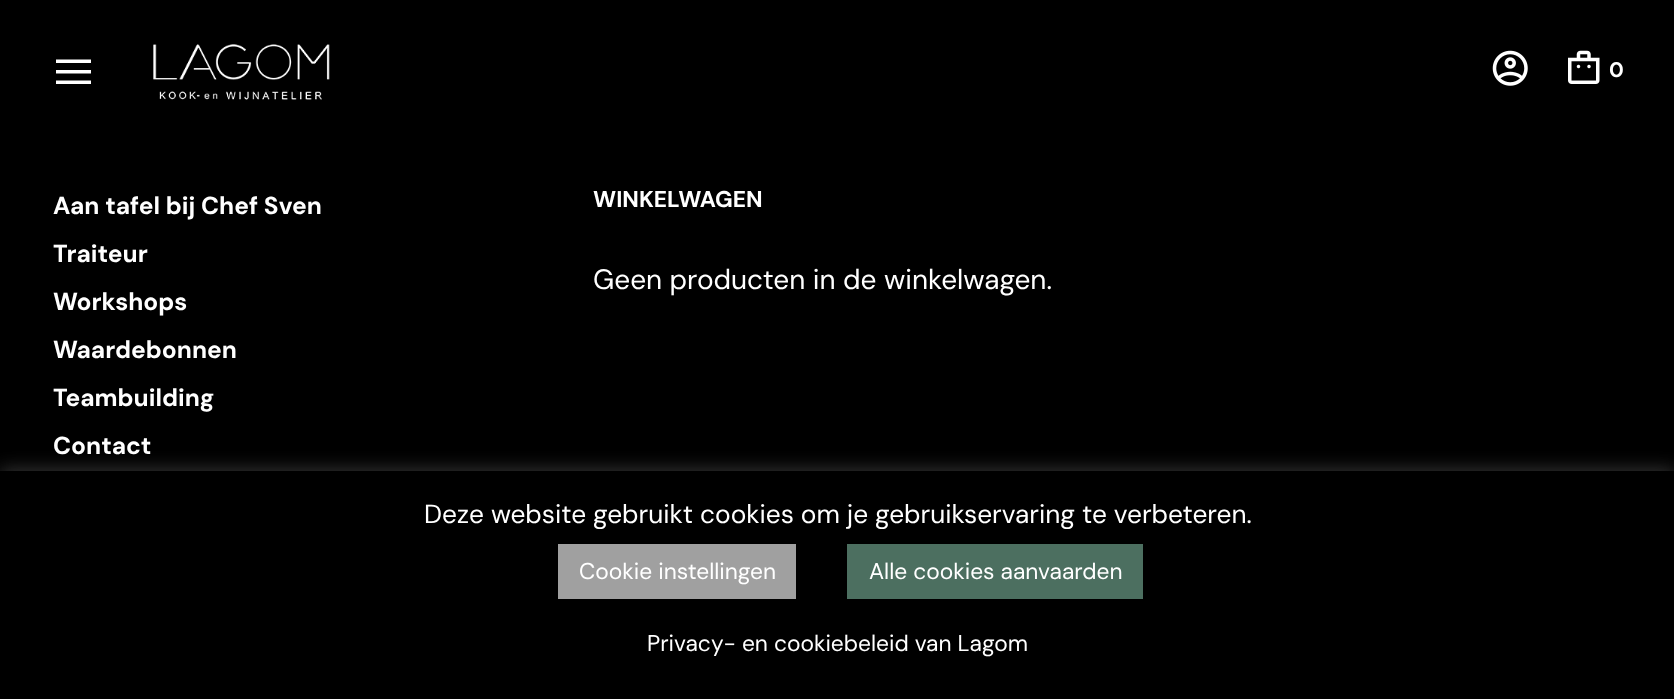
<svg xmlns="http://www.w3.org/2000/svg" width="1674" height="699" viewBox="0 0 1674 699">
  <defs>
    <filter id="blur1" x="-50%" y="-200%" width="200%" height="500%"><feGaussianBlur stdDeviation="9"/></filter>
  </defs>
  <rect width="100%" height="100%" fill="#000000"/>
  <path d="M56 59.5V63H91V59.5ZM56 70V73.5H91V70ZM56 80.5V84H91V80.5Z" fill="#ffffff"/>
  <image x="153" y="44" width="177" height="56" href="img1.png"/>
  <image x="1492" y="50" width="36" height="36" href="img2.png"/>
  <image x="1568" y="50" width="32" height="34" href="img3.png"/>
  <text x="1609" y="77" font-family="DM Sans" font-size="21" font-weight="bold" fill="#ffffff">0</text>
  <text x="53" y="214" font-family="DM Sans" font-size="24.5" font-weight="bold" fill="#ffffff">Aan tafel bij Chef Sven</text>
  <text x="53" y="262" font-family="DM Sans" font-size="24.5" font-weight="bold" fill="#ffffff">Traiteur</text>
  <text x="53" y="310" font-family="DM Sans" font-size="24.5" font-weight="bold" fill="#ffffff">Workshops</text>
  <text x="53" y="358" font-family="DM Sans" font-size="24.5" font-weight="bold" fill="#ffffff">Waardebonnen</text>
  <text x="53" y="406" font-family="DM Sans" font-size="24.5" font-weight="bold" fill="#ffffff">Teambuilding</text>
  <text x="53" y="454" font-family="DM Sans" font-size="24.5" font-weight="bold" fill="#ffffff">Contact</text>
  <text x="593" y="207" font-family="DM Sans" font-size="22.75" font-weight="bold" fill="#ffffff">WINKELWAGEN</text>
  <text x="593" y="289" font-family="DM Sans" font-size="28" fill="#ffffff">Geen producten in de winkelwagen.</text>
  <rect x="0" y="469" width="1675" height="229" fill="#acabab" fill-opacity="0.3" filter="url(#blur1)"/>
  <rect x="0" y="471" width="1674" height="228" fill="#000000"/>
  <text x="424" y="523" font-family="DM Sans" font-size="26.25" fill="#ffffff">Deze website gebruikt cookies om je gebruikservaring te verbeteren.</text>
  <rect x="558" y="544" width="238" height="55" fill="#a0a0a0"/>
  <text x="579" y="579" font-family="DM Sans" font-size="22.75" fill="#ffffff">Cookie instellingen</text>
  <rect x="847" y="544" width="296" height="55" fill="#4c6f60"/>
  <text x="869" y="579" font-family="DM Sans" font-size="22.75" fill="#ffffff">Alle cookies aanvaarden</text>
  <text x="647" y="651" font-family="DM Sans" font-size="22.75" fill="#ffffff">Privacy- en cookiebeleid van Lagom</text>
</svg>
